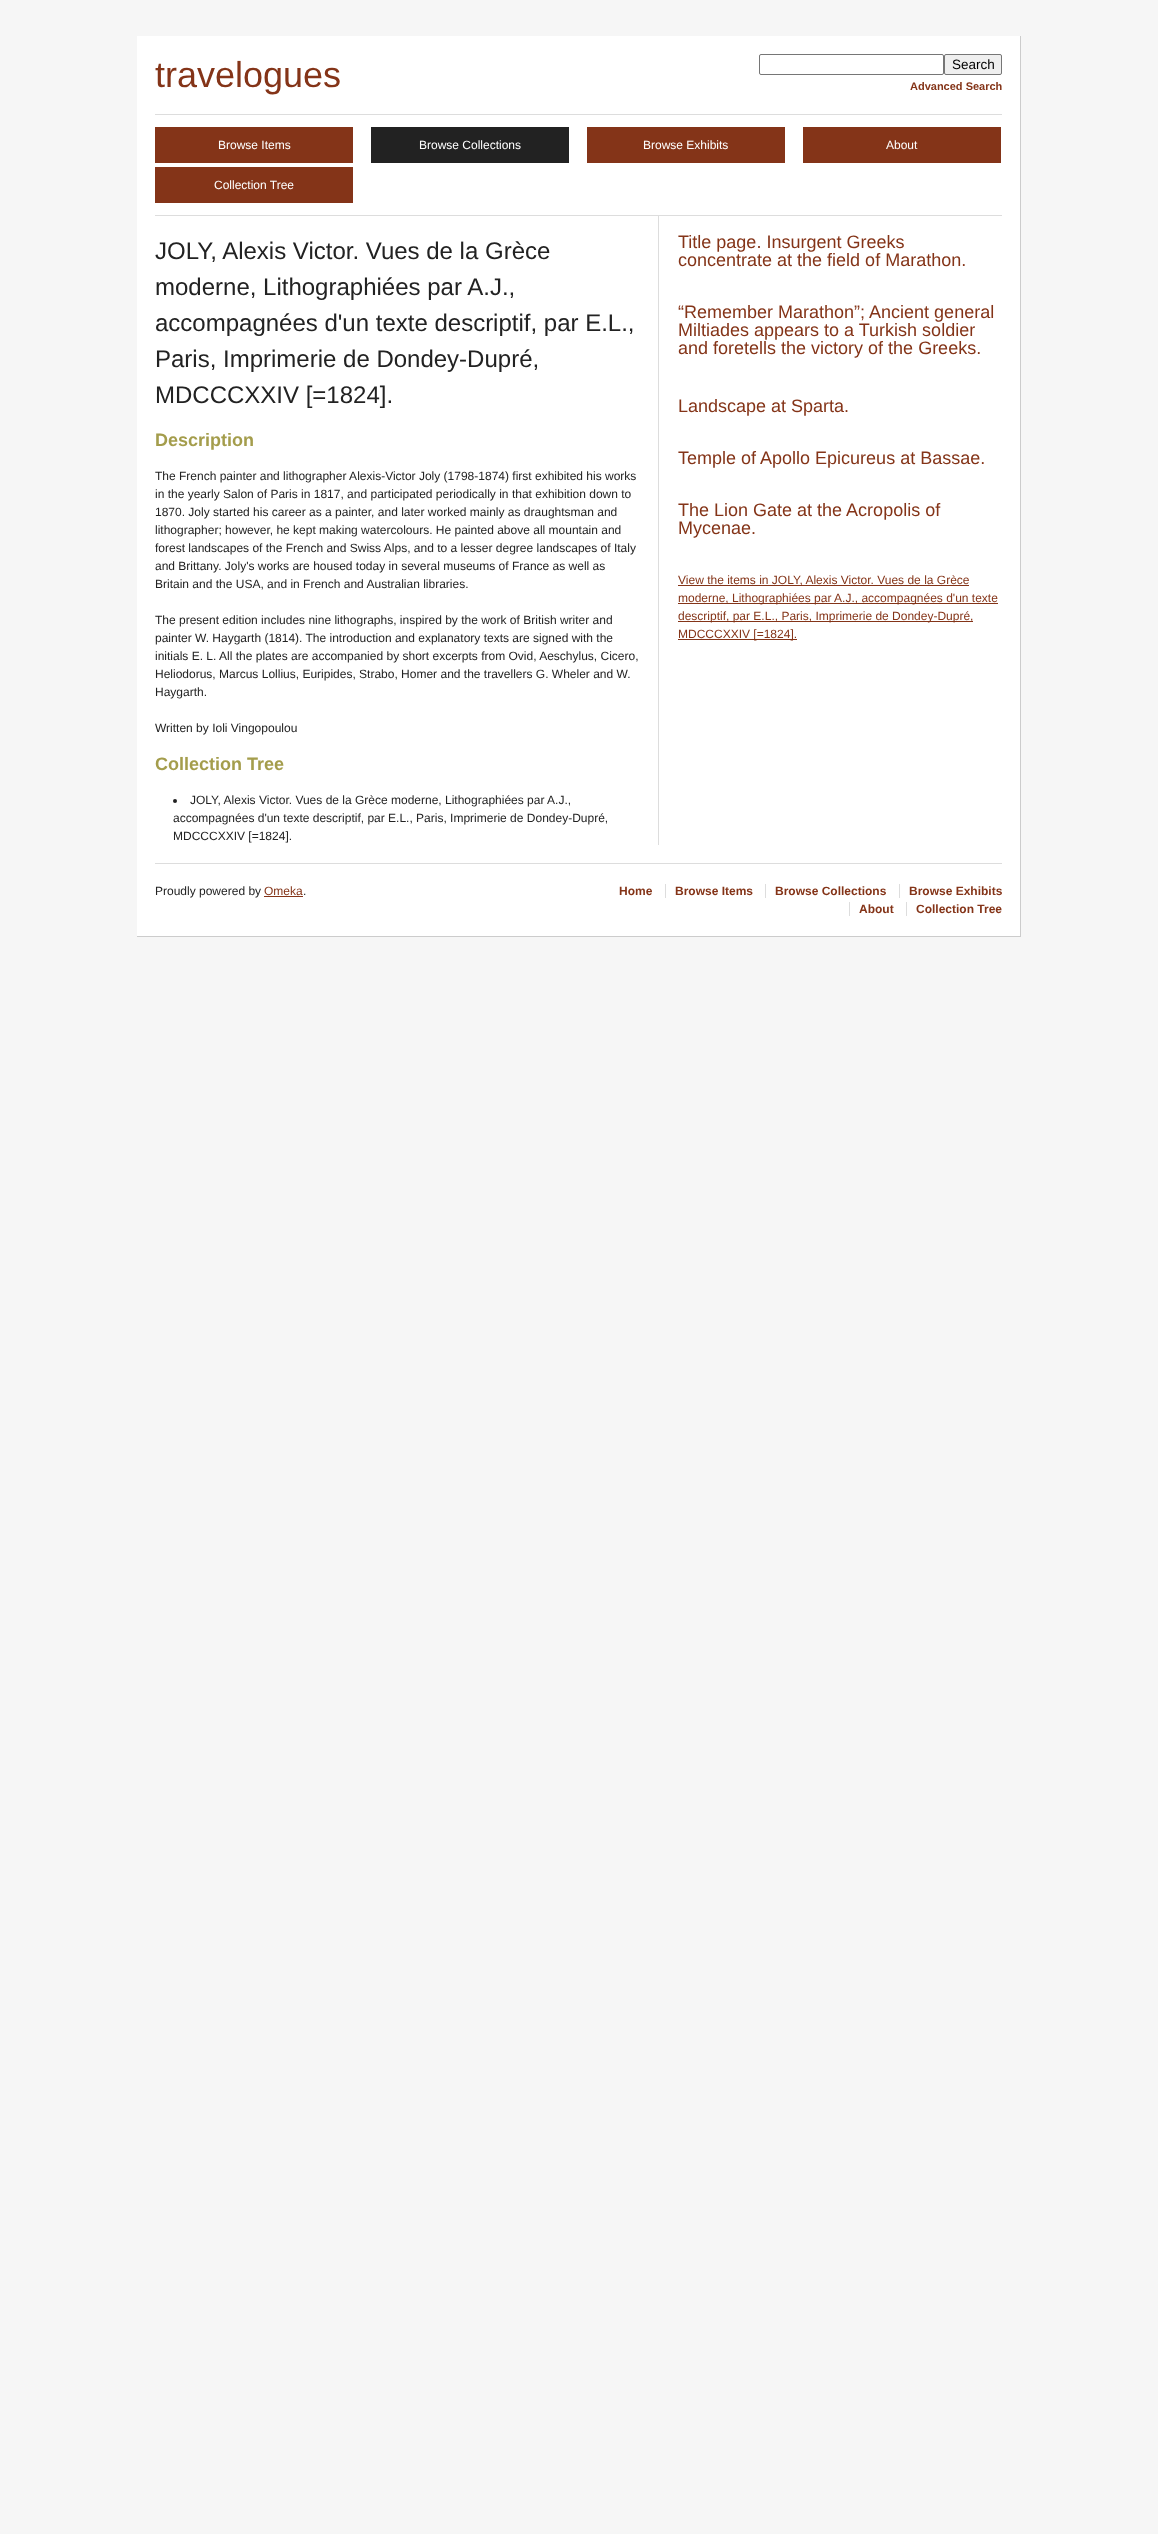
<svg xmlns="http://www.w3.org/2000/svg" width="1158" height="2534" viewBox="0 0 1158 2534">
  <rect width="100%" height="100%" fill="#f6f6f6"/>
  <rect x="137" y="36" width="883" height="900" fill="#ffffff"/>
  <rect x="1020" y="36" width="1" height="901" fill="#cccccc"/>
  <rect x="137" y="936" width="884" height="1" fill="#cccccc"/>
  <text x="155" y="87" font-family="Liberation Sans" font-size="36" fill="#843418">travelogues</text>
  <rect x="759.5" y="54.5" width="184" height="20" rx="1.5" fill="none" stroke="#767676"/>
  <rect x="944.5" y="54.5" width="57" height="20" rx="1.5" fill="#efefef" stroke="#767676"/>
  <text x="952" y="69" font-family="Liberation Sans" font-size="13.5" fill="#000000">Search</text>
  <text x="910" y="90" font-family="Liberation Sans" font-size="11" font-weight="bold" fill="#843418">Advanced Search</text>
  <rect x="155" y="114" width="847" height="1" fill="#dddddd"/>
  <rect x="155" y="127" width="198" height="36" fill="#843418"/>
  <text x="218" y="149" font-family="Liberation Sans" font-size="12" fill="#ffffff">Browse Items</text>
  <rect x="371" y="127" width="198" height="36" fill="#222222"/>
  <text x="419" y="149" font-family="Liberation Sans" font-size="12" fill="#ffffff">Browse Collections</text>
  <rect x="587" y="127" width="198" height="36" fill="#843418"/>
  <text x="643" y="149" font-family="Liberation Sans" font-size="12" fill="#ffffff">Browse Exhibits</text>
  <rect x="803" y="127" width="198" height="36" fill="#843418"/>
  <text x="886" y="149" font-family="Liberation Sans" font-size="12" fill="#ffffff">About</text>
  <rect x="155" y="167" width="198" height="36" fill="#843418"/>
  <text x="214" y="189" font-family="Liberation Sans" font-size="12" fill="#ffffff">Collection Tree</text>
  <rect x="155" y="215" width="847" height="1" fill="#dddddd"/>
  <rect x="155" y="863" width="847" height="1" fill="#dddddd"/>
  <rect x="658" y="216" width="1" height="629" fill="#dddddd"/>
  <text x="155" y="259" font-family="Liberation Sans" font-size="24" fill="#222222">JOLY, Alexis Victor. Vues de la Grèce</text>
  <text x="155" y="295" font-family="Liberation Sans" font-size="24" fill="#222222">moderne, Lithographiées par A.J.,</text>
  <text x="155" y="331" font-family="Liberation Sans" font-size="24" fill="#222222">accompagnées d'un texte descriptif, par E.L.,</text>
  <text x="155" y="367" font-family="Liberation Sans" font-size="24" fill="#222222">Paris, Imprimerie de Dondey-Dupré,</text>
  <text x="155" y="403" font-family="Liberation Sans" font-size="24" fill="#222222">MDCCCXXIV [=1824].</text>
  <text x="155" y="446" font-family="Liberation Sans" font-size="18" font-weight="bold" fill="#a49d4c">Description</text>
  <text x="155" y="480" font-family="Liberation Sans" font-size="12" fill="#222222">The French painter and lithographer Alexis-Victor Joly (1798-1874) first exhibited his works</text>
  <text x="155" y="498" font-family="Liberation Sans" font-size="12" fill="#222222">in the yearly Salon of Paris in 1817, and participated periodically in that exhibition down to</text>
  <text x="155" y="516" font-family="Liberation Sans" font-size="12" fill="#222222">1870. Joly started his career as a painter, and later worked mainly as draughtsman and</text>
  <text x="155" y="534" font-family="Liberation Sans" font-size="12" fill="#222222">lithographer; however, he kept making watercolours. He painted above all mountain and</text>
  <text x="155" y="552" font-family="Liberation Sans" font-size="12" fill="#222222">forest landscapes of the French and Swiss Alps, and to a lesser degree landscapes of Italy</text>
  <text x="155" y="570" font-family="Liberation Sans" font-size="12" fill="#222222">and Brittany. Joly's works are housed today in several museums of France as well as</text>
  <text x="155" y="588" font-family="Liberation Sans" font-size="12" fill="#222222">Britain and the USA, and in French and Australian libraries.</text>
  <text x="155" y="624" font-family="Liberation Sans" font-size="12" fill="#222222">The present edition includes nine lithographs, inspired by the work of British writer and</text>
  <text x="155" y="642" font-family="Liberation Sans" font-size="12" fill="#222222">painter W. Haygarth (1814). The introduction and explanatory texts are signed with the</text>
  <text x="155" y="660" font-family="Liberation Sans" font-size="12" fill="#222222">initials E. L. All the plates are accompanied by short excerpts from Ovid, Aeschylus, Cicero,</text>
  <text x="155" y="678" font-family="Liberation Sans" font-size="12" fill="#222222">Heliodorus, Marcus Lollius, Euripides, Strabo, Homer and the travellers G. Wheler and W.</text>
  <text x="155" y="696" font-family="Liberation Sans" font-size="12" fill="#222222">Haygarth.</text>
  <text x="155" y="732" font-family="Liberation Sans" font-size="12" fill="#222222">Written by Ioli Vingopoulou</text>
  <text x="155" y="770" font-family="Liberation Sans" font-size="18" font-weight="bold" fill="#a49d4c">Collection Tree</text>
  <circle cx="175" cy="801" r="2" fill="#222222"/>
  <text x="190" y="804" font-family="Liberation Sans" font-size="12" fill="#222222">JOLY, Alexis Victor. Vues de la Grèce moderne, Lithographiées par A.J.,</text>
  <text x="173" y="822" font-family="Liberation Sans" font-size="12" fill="#222222">accompagnées d'un texte descriptif, par E.L., Paris, Imprimerie de Dondey-Dupré,</text>
  <text x="173" y="840" font-family="Liberation Sans" font-size="12" fill="#222222">MDCCCXXIV [=1824].</text>
  <text x="678" y="248" font-family="Liberation Sans" font-size="18" fill="#843418">Title page. Insurgent Greeks</text>
  <text x="678" y="266" font-family="Liberation Sans" font-size="18" fill="#843418">concentrate at the field of Marathon.</text>
  <text x="678" y="318" font-family="Liberation Sans" font-size="18" fill="#843418">“Remember Marathon”; Ancient general</text>
  <text x="678" y="336" font-family="Liberation Sans" font-size="18" fill="#843418">Miltiades appears to a Turkish soldier</text>
  <text x="678" y="354" font-family="Liberation Sans" font-size="18" fill="#843418">and foretells the victory of the Greeks.</text>
  <text x="678" y="412" font-family="Liberation Sans" font-size="18" fill="#843418">Landscape at Sparta.</text>
  <text x="678" y="464" font-family="Liberation Sans" font-size="18" fill="#843418">Temple of Apollo Epicureus at Bassae.</text>
  <text x="678" y="516" font-family="Liberation Sans" font-size="18" fill="#843418">The Lion Gate at the Acropolis of</text>
  <text x="678" y="534" font-family="Liberation Sans" font-size="18" fill="#843418">Mycenae.</text>
  <rect x="678" y="585" width="291" height="1" fill="#843418"/>
  <text x="678" y="584" font-family="Liberation Sans" font-size="12" fill="#843418">View the items in JOLY, Alexis Victor. Vues de la Grèce</text>
  <rect x="678" y="603" width="320" height="1" fill="#843418"/>
  <text x="678" y="602" font-family="Liberation Sans" font-size="12" fill="#843418">moderne, Lithographiées par A.J., accompagnées d'un texte</text>
  <rect x="678" y="621" width="295" height="1" fill="#843418"/>
  <text x="678" y="620" font-family="Liberation Sans" font-size="12" fill="#843418">descriptif, par E.L., Paris, Imprimerie de Dondey-Dupré,</text>
  <rect x="678" y="639" width="119" height="1" fill="#843418"/>
  <text x="678" y="638" font-family="Liberation Sans" font-size="12" fill="#843418">MDCCCXXIV [=1824].</text>
  <text x="155" y="895" font-family="Liberation Sans" font-size="12" fill="#222222">Proudly powered by</text>
  <text x="264" y="895" font-family="Liberation Sans" font-size="12" fill="#843418">Omeka</text>
  <rect x="264" y="896" width="39" height="1" fill="#843418"/>
  <text x="303" y="895" font-family="Liberation Sans" font-size="12" fill="#222222">.</text>
  <text x="619" y="895" font-family="Liberation Sans" font-size="12" font-weight="bold" fill="#843418">Home</text>
  <text x="675" y="895" font-family="Liberation Sans" font-size="12" font-weight="bold" fill="#843418">Browse Items</text>
  <rect x="665" y="884" width="1" height="14" fill="#dddddd"/>
  <text x="775" y="895" font-family="Liberation Sans" font-size="12" font-weight="bold" fill="#843418">Browse Collections</text>
  <rect x="765" y="884" width="1" height="14" fill="#dddddd"/>
  <text x="909" y="895" font-family="Liberation Sans" font-size="12" font-weight="bold" fill="#843418">Browse Exhibits</text>
  <rect x="899" y="884" width="1" height="14" fill="#dddddd"/>
  <text x="859" y="913" font-family="Liberation Sans" font-size="12" font-weight="bold" fill="#843418">About</text>
  <rect x="849" y="902" width="1" height="14" fill="#dddddd"/>
  <text x="916" y="913" font-family="Liberation Sans" font-size="12" font-weight="bold" fill="#843418">Collection Tree</text>
  <rect x="906" y="902" width="1" height="14" fill="#dddddd"/>
</svg>
